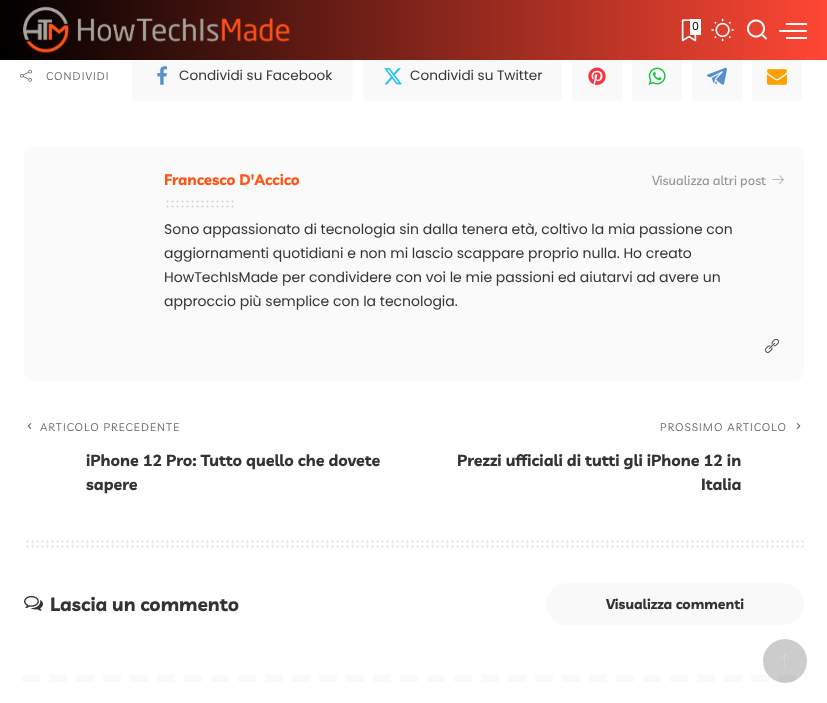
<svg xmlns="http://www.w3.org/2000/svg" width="827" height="703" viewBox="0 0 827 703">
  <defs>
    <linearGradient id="g1" gradientUnits="userSpaceOnUse" x1="0" y1="30" x2="827" y2="30"><stop offset="0" stop-color="#000000"/><stop offset="1" stop-color="#ff4734"/></linearGradient>
  </defs>
  <rect width="100%" height="100%" fill="#ffffff"/>
  <rect x="132" y="51" width="221" height="50" rx="4" fill="#f9f9f9"/>
  <rect x="363" y="51" width="199" height="50" rx="4" fill="#f9f9f9"/>
  <rect x="572" y="51" width="50" height="50" rx="4" fill="#f9f9f9"/>
  <rect x="632" y="51" width="50" height="50" rx="4" fill="#f9f9f9"/>
  <rect x="692" y="51" width="50" height="50" rx="4" fill="#f9f9f9"/>
  <rect x="752" y="51" width="50" height="50" rx="4" fill="#f9f9f9"/>
  <rect x="0" y="0" width="827" height="60" fill="url(#g1)"/>
  <image x="23" y="6" width="267" height="47" href="img1.png"/>
  <image x="681" y="19" width="16" height="23" href="img2.png"/>
  <rect x="690" y="19" width="11" height="16" fill="#ffffff"/>
  <text x="692" y="30" font-family="Poppins" font-size="11" fill="#000000">0</text>
  <image x="711" y="18" width="23" height="24" href="img3.png"/>
  <image x="747" y="19" width="20" height="21" href="img4.png"/>
  <rect x="779" y="30" width="28" height="2" rx="1" fill="#ffffff"/>
  <rect x="786" y="23" width="21" height="2" fill="#ffffff"/>
  <rect x="786" y="37" width="21" height="2" fill="#ffffff"/>
  <image x="20" y="69" width="12" height="13" href="img5.png"/>
  <text x="46" y="80" font-family="Livvic" font-size="11" letter-spacing="1.1" fill="#666666">CONDIVIDI</text>
  <image x="157" y="66" width="10" height="19" href="img6.png"/>
  <text x="179" y="80" font-family="Poppins" font-size="13.6" fill="#333333">Condividi su Facebook</text>
  <image x="384" y="68" width="18" height="17" href="img7.png"/>
  <text x="410" y="80" font-family="Poppins" font-size="13.6" fill="#333333">Condividi su Twitter</text>
  <image x="588" y="67" width="18" height="18" href="img8.png"/>
  <image x="648" y="67" width="18" height="18" href="img9.png"/>
  <image x="707" y="67" width="20" height="18" href="img10.png"/>
  <image x="767" y="69" width="20" height="16" href="img11.png"/>
  <rect x="24" y="146" width="780" height="235" rx="10" fill="#fafafa"/>
  <text x="164" y="185" font-family="Livvic" font-size="15" font-weight="bold" fill="#ff5417">Francesco D'Accico</text>
  <text x="652" y="185" font-family="Livvic" font-size="13" font-weight="500" fill="#979797">Visualizza altri post</text>
  <image x="771" y="175" width="13" height="9" href="img12.png"/>
  <path d="M167.5 201.5H232.7" fill="none" stroke="#d2d2d2" stroke-width="2" stroke-linecap="round" stroke-dasharray="0 5"/>
  <path d="M167.5 206.5H232.7" fill="none" stroke="#d2d2d2" stroke-width="2" stroke-linecap="round" stroke-dasharray="0 5"/>
  <text x="164" y="234" font-family="Poppins" font-size="14" fill="#333333">Sono appassionato di tecnologia sin dalla tenera età, coltivo la mia passione con</text>
  <text x="164" y="258" font-family="Poppins" font-size="14" fill="#333333">aggiornamenti quotidiani e non mi lascio scappare proprio nulla. Ho creato</text>
  <text x="164" y="282" font-family="Poppins" font-size="14" fill="#333333">HowTechIsMade per condividere con voi le mie passioni ed aiutarvi ad avere un</text>
  <text x="164" y="306" font-family="Poppins" font-size="14" fill="#333333">approccio più semplice con la tecnologia.</text>
  <image x="765" y="338" width="14" height="15" href="img13.png"/>
  <image x="27" y="423" width="5" height="7" href="img14.png"/>
  <text x="40" y="431" font-family="Livvic" font-size="11" letter-spacing="1.1" fill="#666666">ARTICOLO PRECEDENTE</text>
  <text x="86" y="466" font-family="Livvic" font-size="16" font-weight="bold" fill="#333333">iPhone 12 Pro: Tutto quello che dovete</text>
  <text x="86" y="490" font-family="Livvic" font-size="16" font-weight="bold" fill="#333333">sapere</text>
  <text x="660" y="431" font-family="Livvic" font-size="11" letter-spacing="1.1" fill="#666666">PROSSIMO ARTICOLO</text>
  <image x="796" y="423" width="5" height="7" href="img15.png"/>
  <text x="457" y="466" font-family="Livvic" font-size="16" font-weight="bold" fill="#333333">Prezzi ufficiali di tutti gli iPhone 12 in</text>
  <text x="701" y="490" font-family="Livvic" font-size="16" font-weight="bold" fill="#333333">Italia</text>
  <path d="M27.5 541.5H802.7" fill="none" stroke="#d6d6d6" stroke-width="2" stroke-linecap="round" stroke-dasharray="0 5"/>
  <path d="M27.5 546.5H802.7" fill="none" stroke="#d6d6d6" stroke-width="2" stroke-linecap="round" stroke-dasharray="0 5"/>
  <image x="24" y="595" width="19" height="16" href="img16.png"/>
  <text x="50" y="611" font-family="Livvic" font-size="19" font-weight="bold" fill="#333333">Lascia un commento</text>
  <rect x="546" y="583" width="258" height="42" rx="21" fill="#f9f9f9"/>
  <text x="606" y="609" font-family="Livvic" font-size="14" font-weight="bold" fill="#333333">Visualizza commenti</text>
  <image x="22" y="675" width="785" height="7" href="img17.png"/>
  <circle cx="785" cy="661" r="22" fill="#333333" fill-opacity="0.25"/>
  <image x="780" y="654" width="9" height="13" href="img18.png"/>
</svg>
